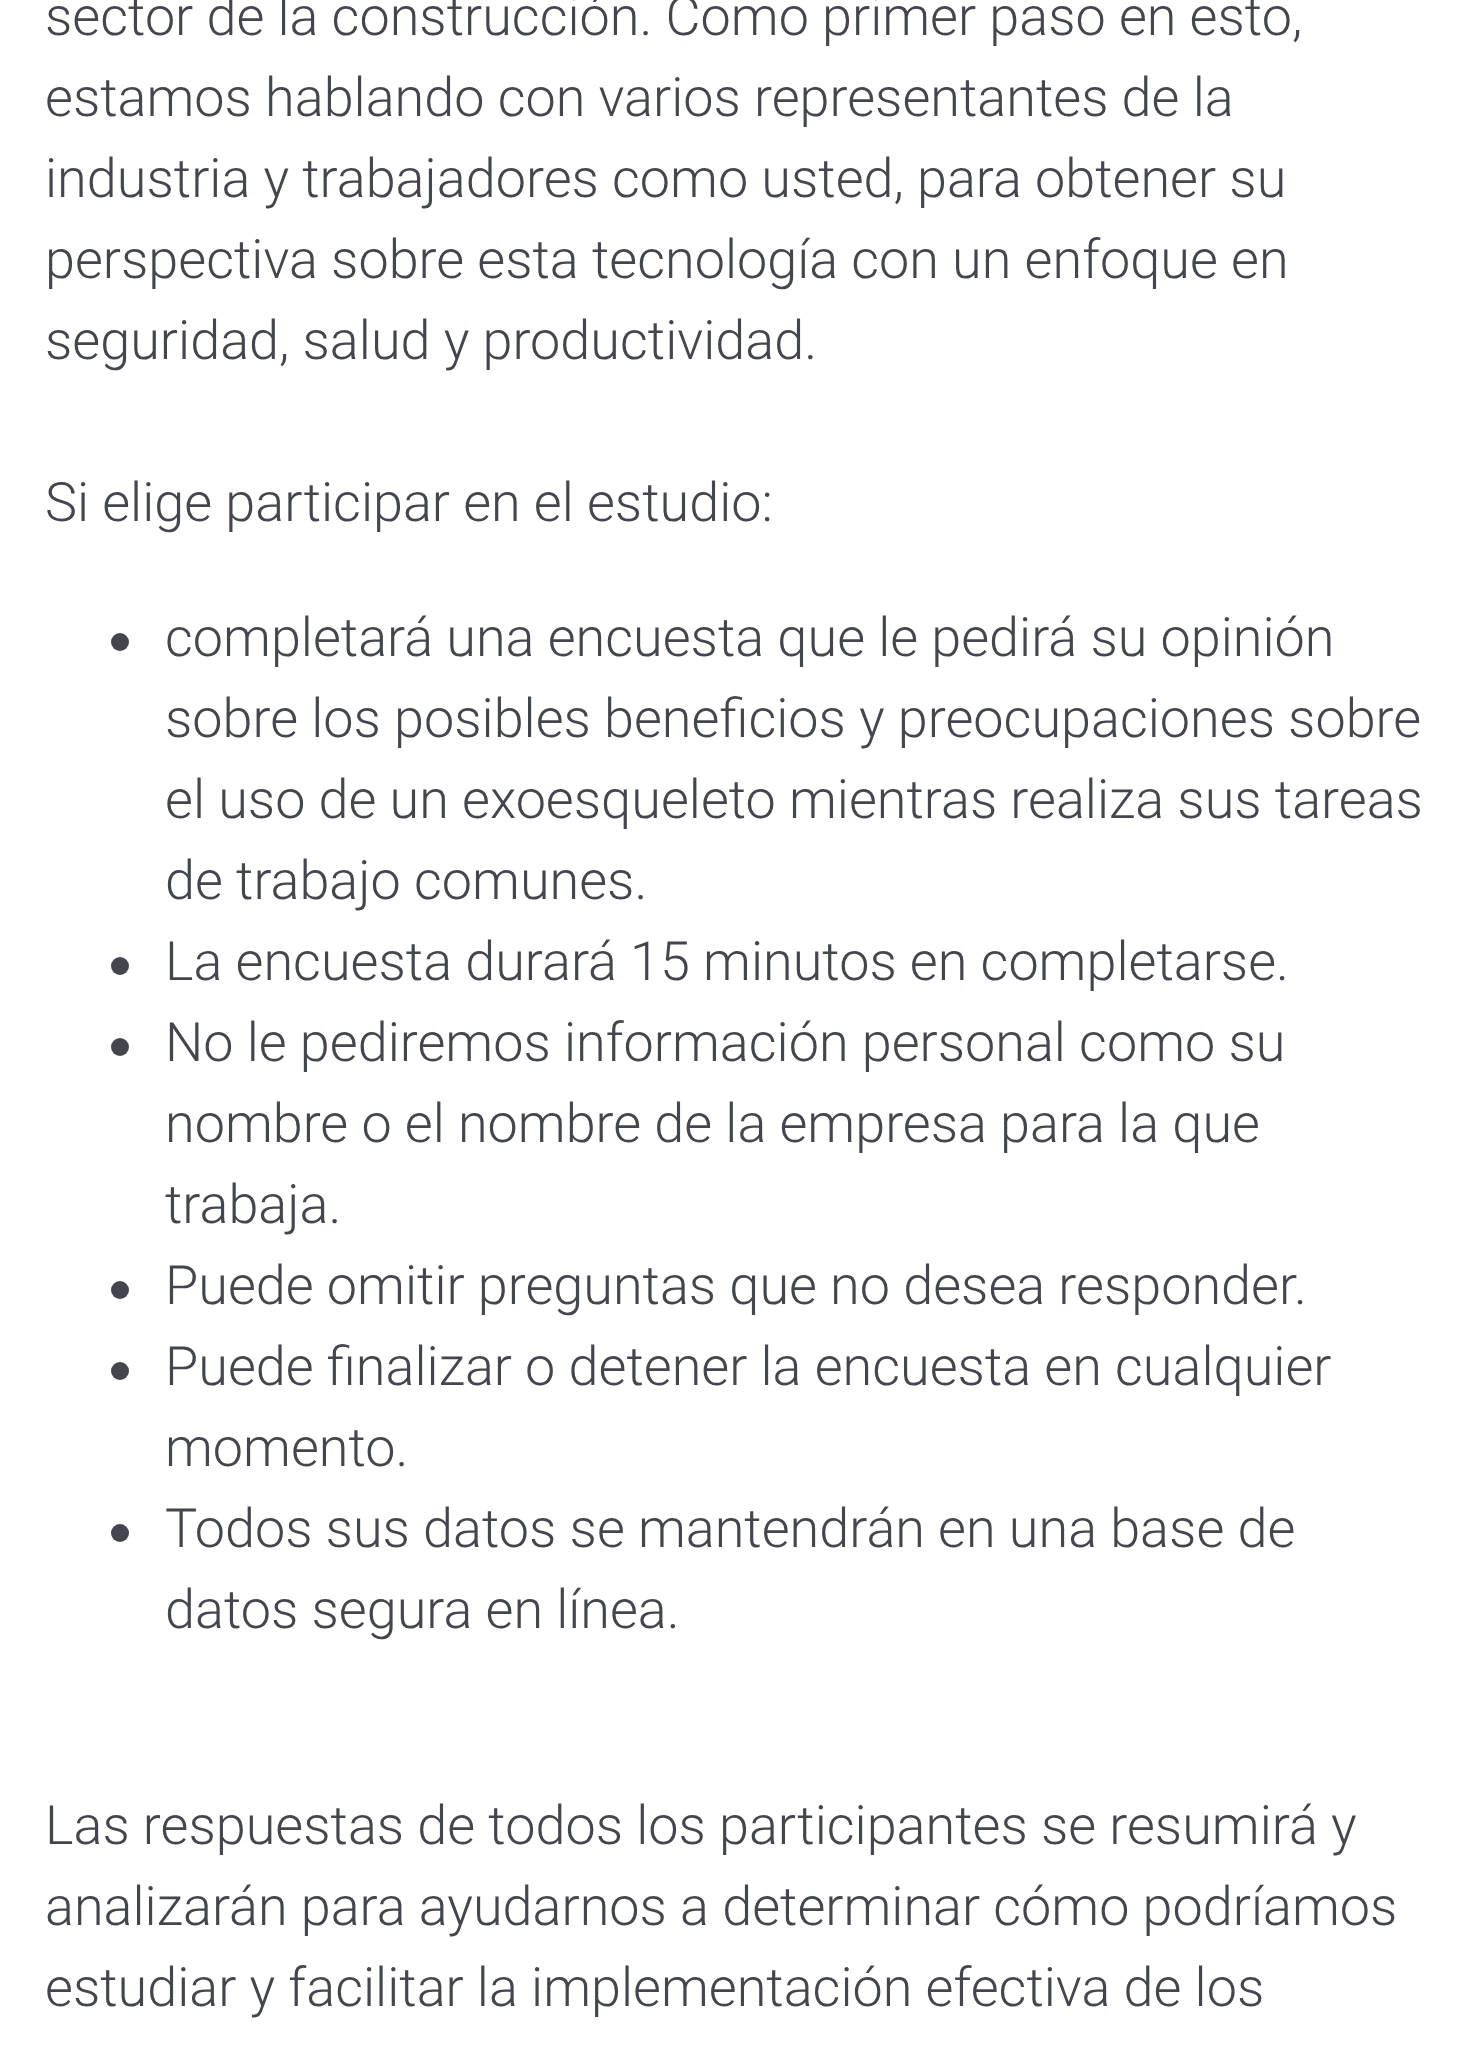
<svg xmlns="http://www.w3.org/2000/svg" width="1477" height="2046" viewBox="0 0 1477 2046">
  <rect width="100%" height="100%" fill="#ffffff"/>
  <text x="45" y="35" font-family="Roboto" font-size="54" font-weight="300" fill="#43464d">sector de la construcción. Como primer paso en esto,</text>
  <text x="45" y="116" font-family="Roboto" font-size="54" font-weight="300" fill="#43464d">estamos hablando con varios representantes de la</text>
  <text x="45" y="197" font-family="Roboto" font-size="54" font-weight="300" fill="#43464d">industria y trabajadores como usted, para obtener su</text>
  <text x="45" y="278" font-family="Roboto" font-size="54" font-weight="300" fill="#43464d">perspectiva sobre esta tecnología con un enfoque en</text>
  <text x="45" y="359" font-family="Roboto" font-size="54" font-weight="300" fill="#43464d">seguridad, salud y productividad.</text>
  <text x="45" y="521" font-family="Roboto" font-size="54" font-weight="300" fill="#43464d">Si elige participar en el estudio:</text>
  <circle cx="120" cy="642" r="9" fill="#43464d"/>
  <text x="165" y="656" font-family="Roboto" font-size="54" font-weight="300" fill="#43464d">completará una encuesta que le pedirá su opinión</text>
  <text x="165" y="737" font-family="Roboto" font-size="54" font-weight="300" fill="#43464d">sobre los posibles beneficios y preocupaciones sobre</text>
  <text x="165" y="818" font-family="Roboto" font-size="54" font-weight="300" fill="#43464d">el uso de un exoesqueleto mientras realiza sus tareas</text>
  <text x="165" y="899" font-family="Roboto" font-size="54" font-weight="300" fill="#43464d">de trabajo comunes.</text>
  <circle cx="120" cy="966" r="9" fill="#43464d"/>
  <text x="165" y="980" font-family="Roboto" font-size="54" font-weight="300" fill="#43464d">La encuesta durará 15 minutos en completarse.</text>
  <circle cx="120" cy="1047" r="9" fill="#43464d"/>
  <text x="165" y="1061" font-family="Roboto" font-size="54" font-weight="300" fill="#43464d">No le pediremos información personal como su</text>
  <text x="165" y="1142" font-family="Roboto" font-size="54" font-weight="300" fill="#43464d">nombre o el nombre de la empresa para la que</text>
  <text x="165" y="1223" font-family="Roboto" font-size="54" font-weight="300" fill="#43464d">trabaja.</text>
  <circle cx="120" cy="1290" r="9" fill="#43464d"/>
  <text x="165" y="1304" font-family="Roboto" font-size="54" font-weight="300" fill="#43464d">Puede omitir preguntas que no desea responder.</text>
  <circle cx="120" cy="1371" r="9" fill="#43464d"/>
  <text x="165" y="1385" font-family="Roboto" font-size="54" font-weight="300" fill="#43464d">Puede finalizar o detener la encuesta en cualquier</text>
  <text x="165" y="1466" font-family="Roboto" font-size="54" font-weight="300" fill="#43464d">momento.</text>
  <circle cx="120" cy="1533" r="9" fill="#43464d"/>
  <text x="165" y="1547" font-family="Roboto" font-size="54" font-weight="300" fill="#43464d">Todos sus datos se mantendrán en una base de</text>
  <text x="165" y="1628" font-family="Roboto" font-size="54" font-weight="300" fill="#43464d">datos segura en línea.</text>
  <text x="45" y="1844" font-family="Roboto" font-size="54" font-weight="300" fill="#43464d">Las respuestas de todos los participantes se resumirá y</text>
  <text x="45" y="1925" font-family="Roboto" font-size="54" font-weight="300" fill="#43464d">analizarán para ayudarnos a determinar cómo podríamos</text>
  <text x="45" y="2006" font-family="Roboto" font-size="54" font-weight="300" fill="#43464d">estudiar y facilitar la implementación efectiva de los</text>
</svg>
